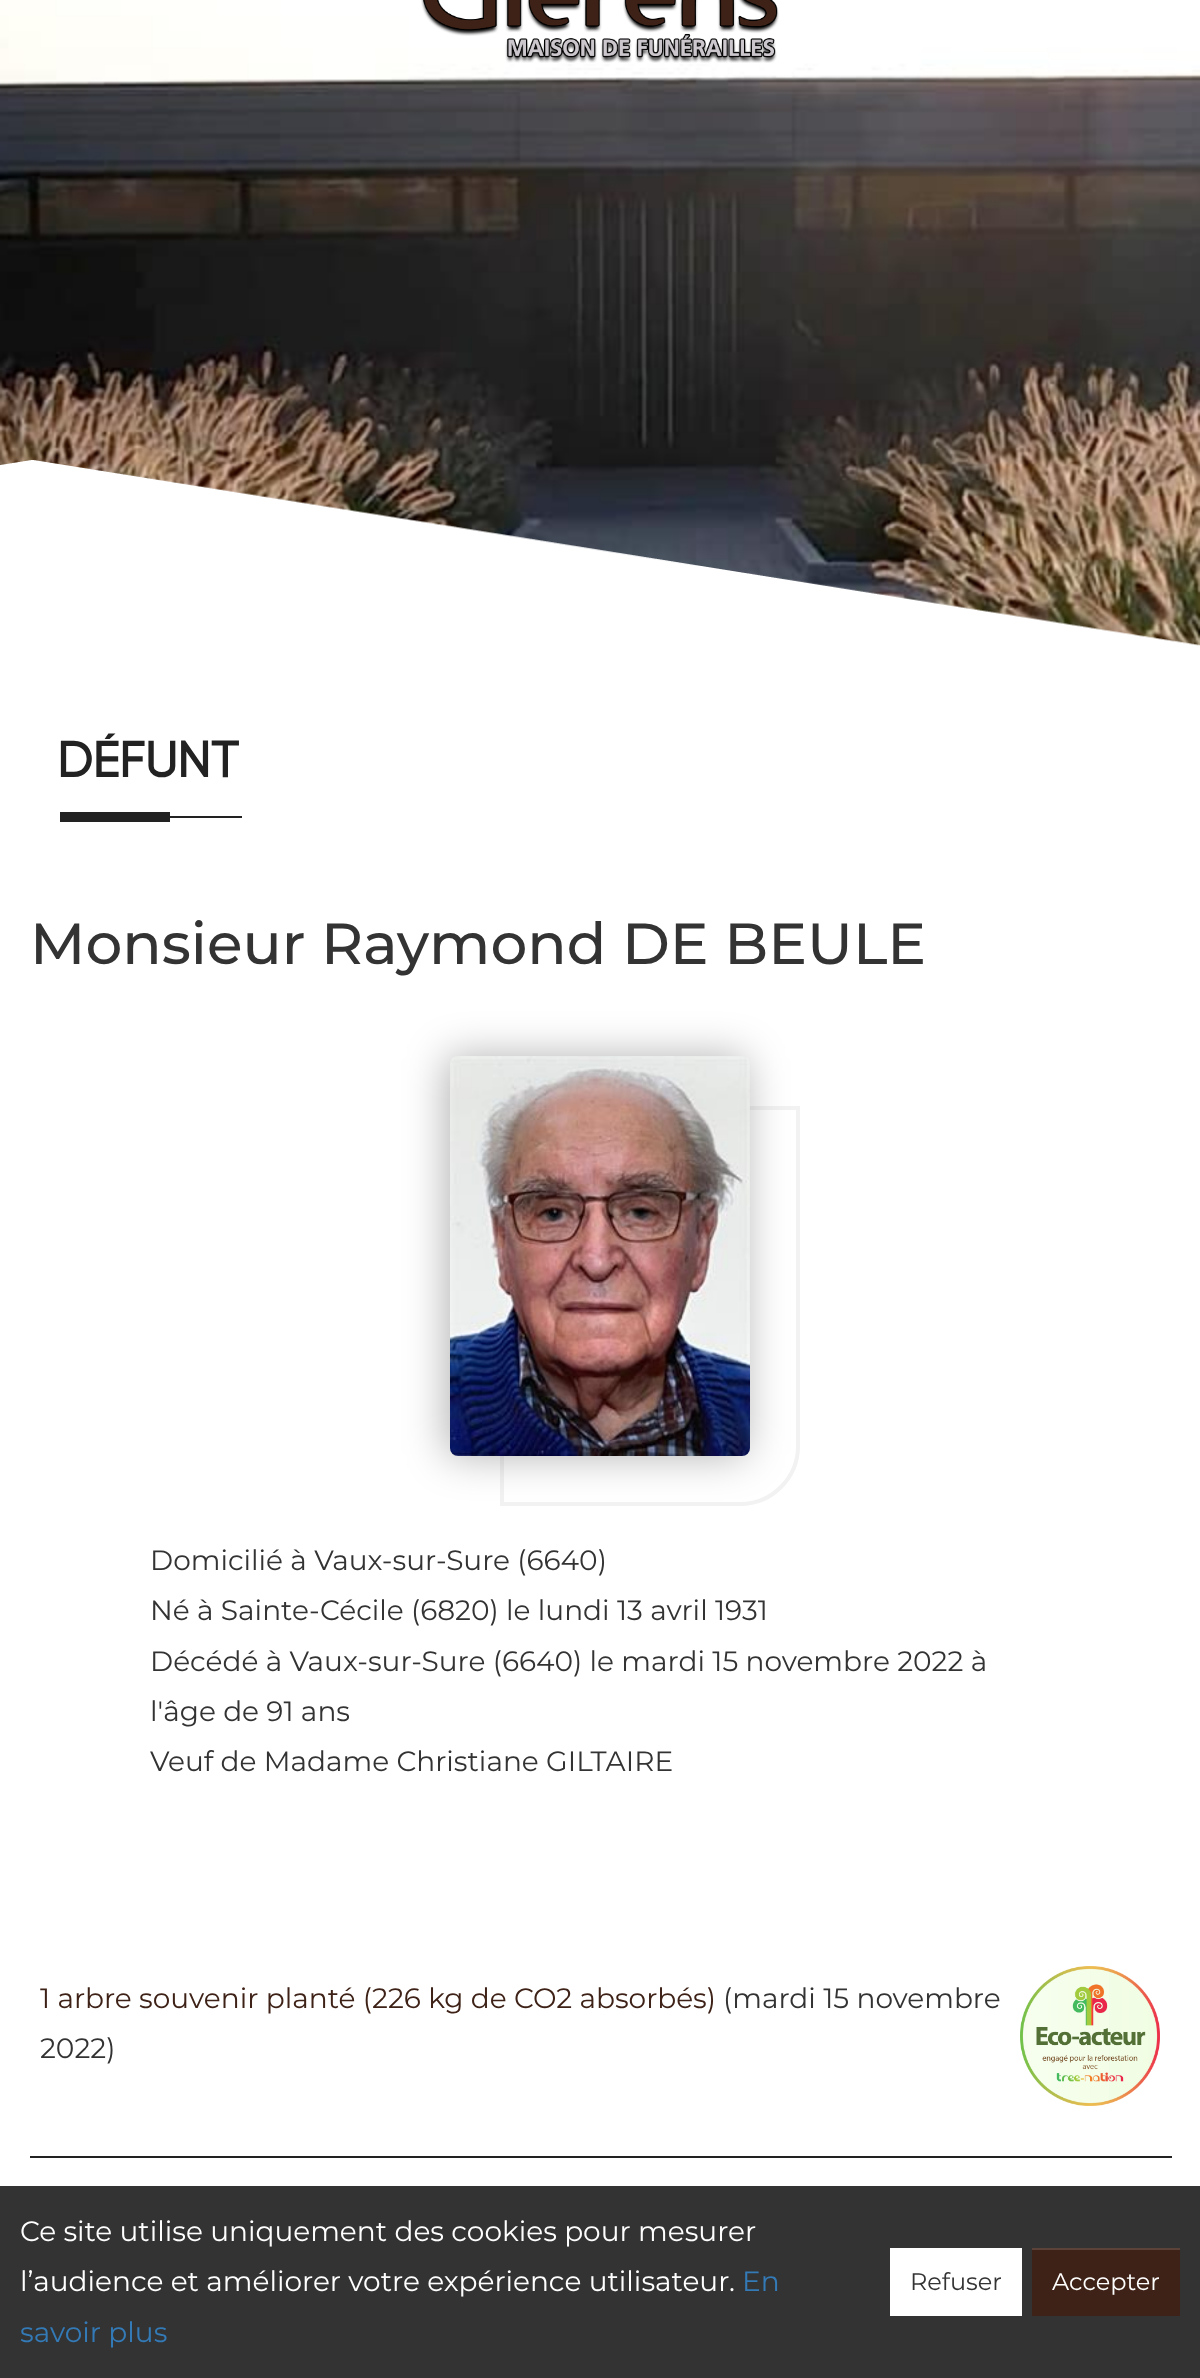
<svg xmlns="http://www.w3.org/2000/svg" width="1200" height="2378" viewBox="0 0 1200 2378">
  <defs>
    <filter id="blur1" x="-50%" y="-200%" width="200%" height="500%"><feGaussianBlur stdDeviation="21"/></filter>
  </defs>
  <rect width="100%" height="100%" fill="#ffffff"/>
  <image x="0" y="0" width="1200" height="646" href="img1.png"/>
  <image x="0" y="460" width="1200" height="212" href="img2.png"/>
  <image x="421" y="0" width="358" height="63" href="img3.png"/>
  <text x="60" y="777" font-family="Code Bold" font-size="52" font-weight="bold" letter-spacing="2" fill="#222222">Défunt</text>
  <rect x="60" y="812" width="110" height="10" fill="#222222"/>
  <rect x="170" y="816" width="72" height="2" fill="#222222"/>
  <text x="30" y="964" font-family="Montserrat" font-size="58" font-weight="100" fill="#333333">Monsieur Raymond DE BEULE</text>
  <path d="M502 1108H798V1446C798 1478 772 1504 740 1504H502Z" fill="none" stroke="#f3f2f2" stroke-width="4"/>
  <rect x="446" y="1056" width="300" height="400" rx="8" fill="#000000" fill-opacity="0.3" filter="url(#blur1)"/>
  <image x="450" y="1056" width="300" height="400" href="img4.png"/>
  <text x="150" y="1570" font-family="'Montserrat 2'" font-size="28" font-weight="100" fill="#333333">Domicilié à Vaux-sur-Sure (6640)</text>
  <text x="150" y="1620" font-family="'Montserrat 2'" font-size="28" font-weight="100" fill="#333333">Né à Sainte-Cécile (6820) le lundi 13 avril 1931</text>
  <text x="150" y="1671" font-family="'Montserrat 2'" font-size="28" font-weight="100" fill="#333333">Décédé à Vaux-sur-Sure (6640) le mardi 15 novembre 2022 à</text>
  <text x="150" y="1721" font-family="'Montserrat 2'" font-size="28" font-weight="100" fill="#333333">l'âge de 91 ans</text>
  <text x="150" y="1771" font-family="'Montserrat 2'" font-size="28" font-weight="100" fill="#333333">Veuf de Madame Christiane GILTAIRE</text>
  <text x="40" y="2008" font-family="'Montserrat 2'" font-size="28" font-weight="100" fill="#3e2217">1 arbre souvenir planté (226 kg de CO2 absorbés)</text>
  <text x="723" y="2008" font-family="'Montserrat 2'" font-size="28" font-weight="100" fill="#333333">(mardi 15 novembre</text>
  <text x="40" y="2058" font-family="'Montserrat 2'" font-size="28" font-weight="100" fill="#333333">2022)</text>
  <image x="1020" y="1966" width="140" height="140" href="img5.png"/>
  <rect x="30" y="2156" width="1142" height="2" fill="#222222"/>
  <rect x="0" y="2186" width="1200" height="192" fill="#333333"/>
  <text x="20" y="2241" font-family="'Montserrat 2'" font-size="28" font-weight="100" fill="#ffffff">Ce site utilise uniquement des cookies pour mesurer</text>
  <text x="20" y="2291" font-family="'Montserrat 2'" font-size="28" font-weight="100" fill="#ffffff">l’audience et améliorer votre expérience utilisateur.</text>
  <text x="742" y="2291" font-family="'Montserrat 2'" font-size="28" font-weight="100" fill="#337ab7">En</text>
  <text x="20" y="2342" font-family="'Montserrat 2'" font-size="28" font-weight="100" fill="#337ab7">savoir plus</text>
  <rect x="890" y="2248" width="132" height="68" fill="#ffffff"/>
  <text x="910" y="2290" font-family="'Montserrat 2'" font-size="24" font-weight="100" fill="#333333">Refuser</text>
  <rect x="1032" y="2250" width="148" height="66" fill="#3e2217"/>
  <rect x="1032" y="2248" width="148" height="2" fill="#5b433a"/>
  <text x="1052" y="2290" font-family="'Montserrat 2'" font-size="24" font-weight="100" fill="#ffffff">Accepter</text>
</svg>
